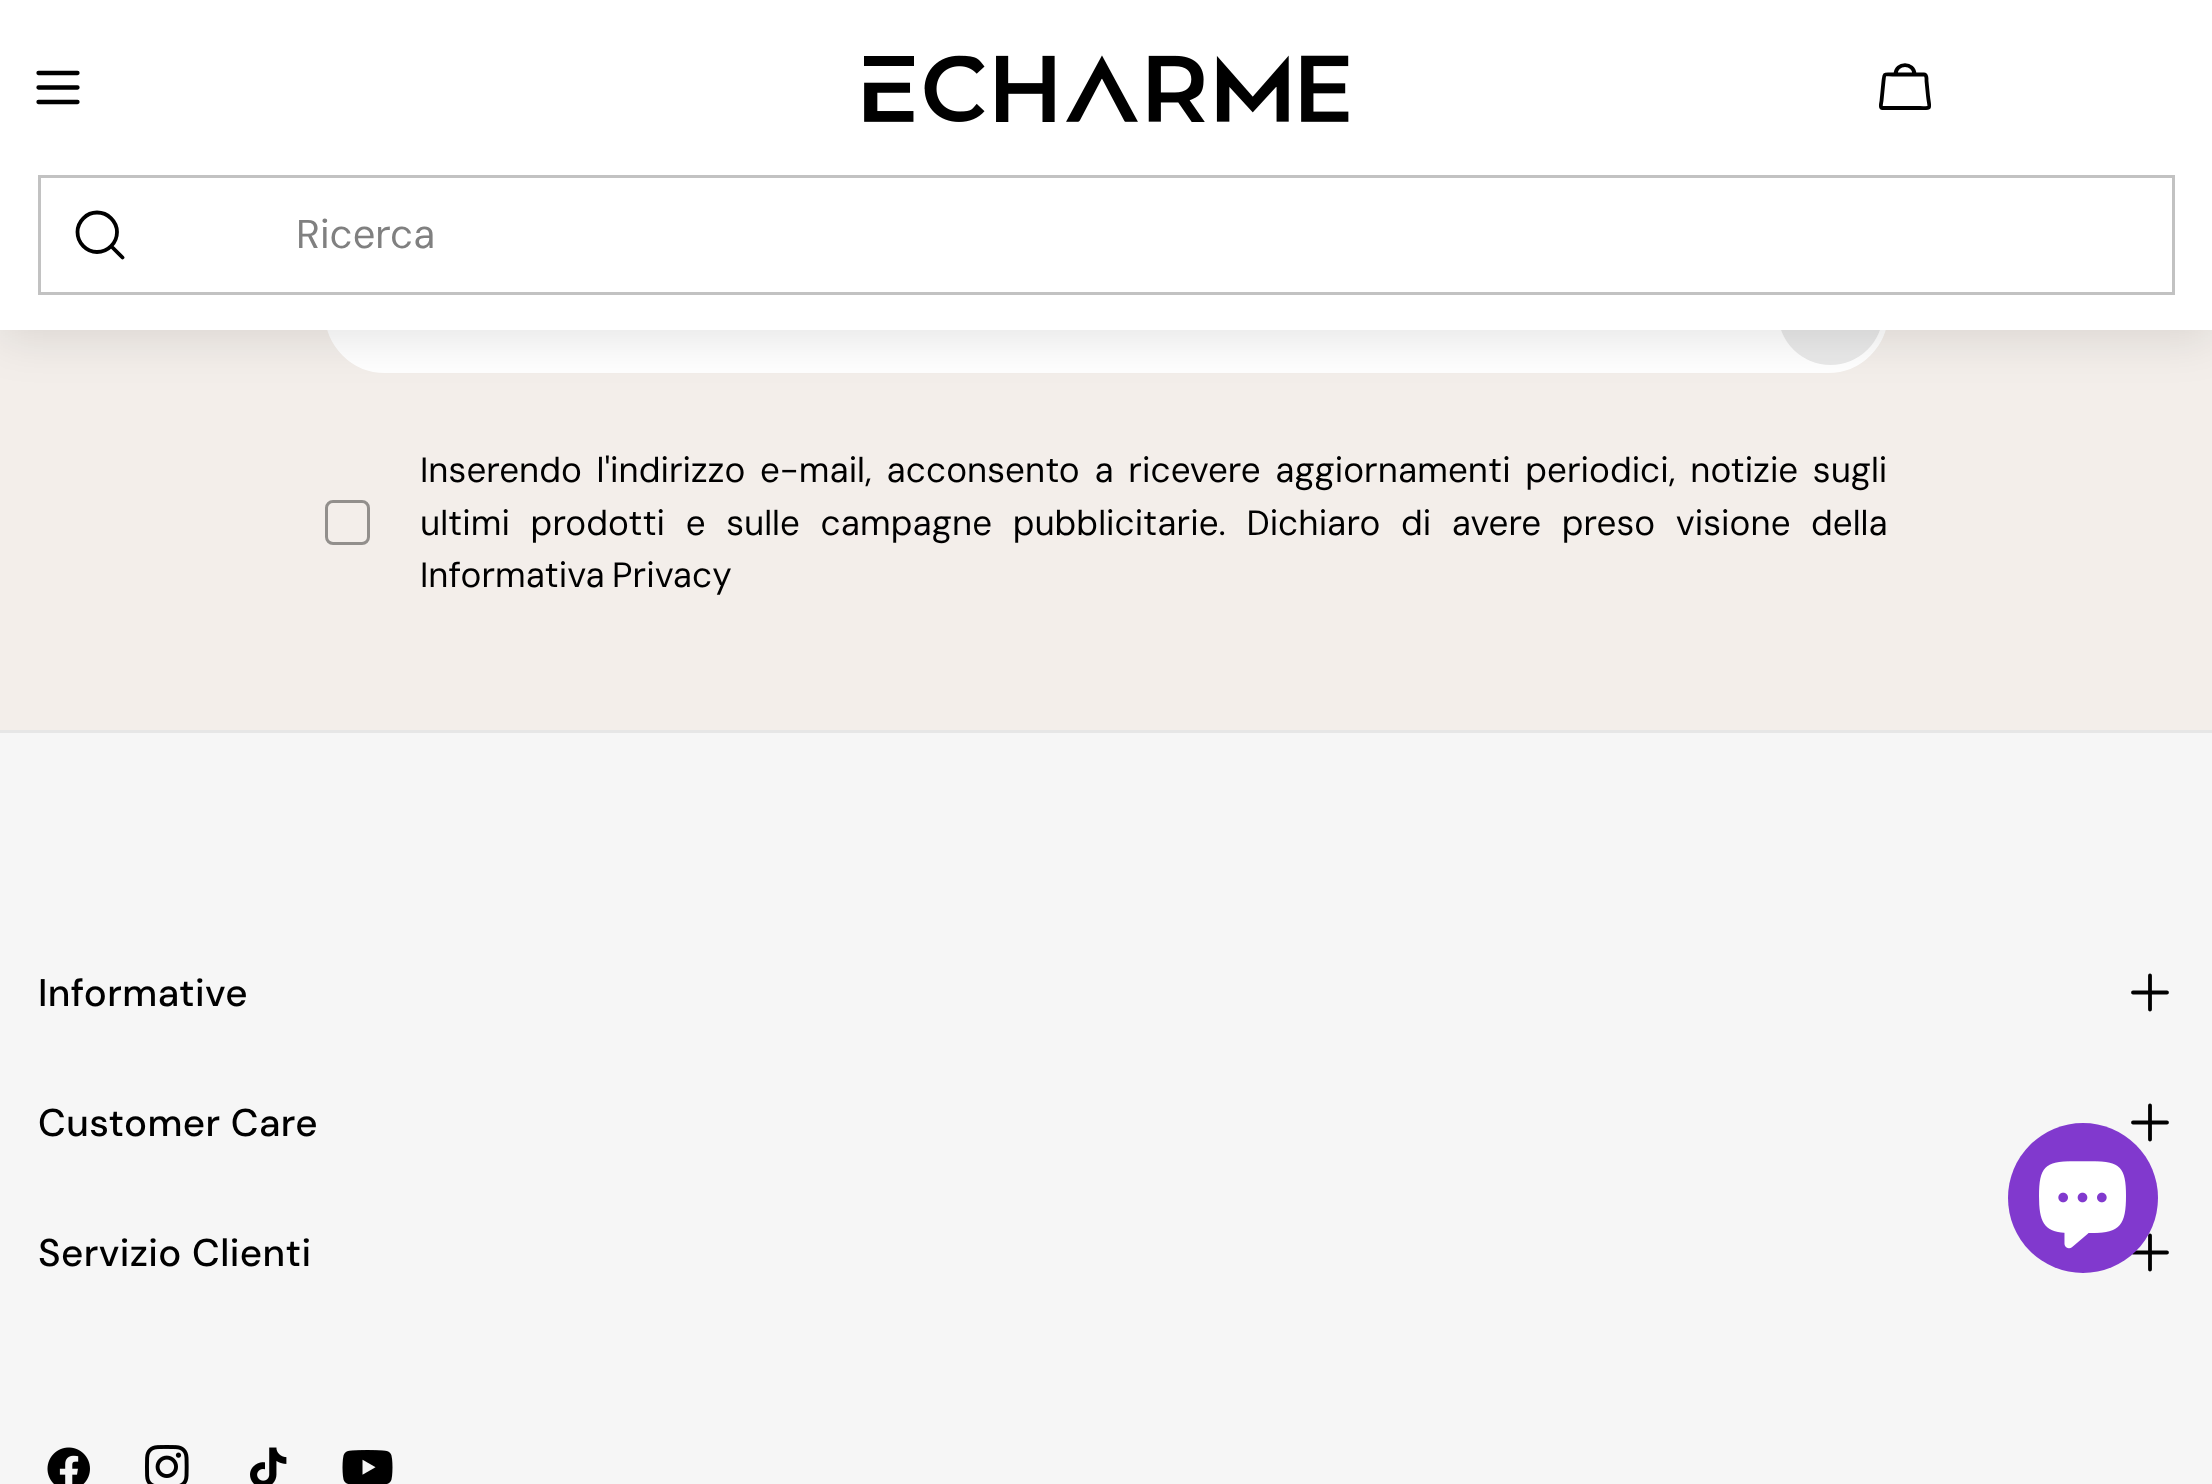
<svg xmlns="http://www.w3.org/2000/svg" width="2212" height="1484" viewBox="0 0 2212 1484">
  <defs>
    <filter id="blur1" x="-50%" y="-200%" width="200%" height="500%"><feGaussianBlur stdDeviation="22.5"/></filter>
  </defs>
  <rect width="100%" height="100%" fill="#f3eeea"/>
  <rect x="326.5" y="254.5" width="1560" height="117" rx="58.5" fill="#ffffff" stroke="#ffffff" stroke-width="3"/>
  <circle cx="1830.5" cy="312.5" r="52.5" fill="#e9e9e9"/>
  <rect x="0" y="10" width="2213" height="330" fill="#000000" fill-opacity="0.1" filter="url(#blur1)"/>
  <rect x="0" y="0" width="2212" height="330" fill="#ffffff"/>
  <path d="M38.5 87.5H77.5M38.5 73H77.5M38.5 102H77.5" fill="none" stroke="#000000" stroke-width="4.3" stroke-linecap="round" stroke-linejoin="round"/>
  <image x="864" y="55" width="485" height="67" href="img1.png"/>
  <path d="M1924 74.5H1892.5C1883.5 74.5 1884.5 73 1883.5 81L1881.5 101C1881.5 102 1879.5 108 1882.5 108H1920C1932 108 1929.5 109.5 1928 96L1926.5 81C1926.5 80 1927 74.5 1924 74.5ZM1895.5 74.5C1895.5 62 1914.5 62 1914.5 74.5" fill="none" stroke="#000000" stroke-width="3.8" stroke-linecap="round" stroke-linejoin="round"/>
  <rect x="39.5" y="176.5" width="2134" height="117" fill="none" stroke="#c2c2c2" stroke-width="3"/>
  <path d="M97 252C108 252 117 243 117 232C117 221.5 108 212.5 97 212.5C86.5 212.5 77.5 221.5 77.5 232C77.5 243 86.5 252 97 252ZM111 246L122.5 257.5" fill="none" stroke="#000000" stroke-width="3.8" stroke-linecap="round" stroke-linejoin="round"/>
  <text x="296" y="248" font-family="DM Sans" font-size="40" fill="#808080">Ricerca</text>
  <rect x="326.5" y="501.5" width="42" height="42" rx="6.5" fill="none" stroke="#928f8c" stroke-width="3"/>
  <text x="420" y="482" word-spacing="5.25" font-family="DM Sans" font-size="35" fill="#000000">Inserendo l'indirizzo e-mail, acconsento a ricevere aggiornamenti periodici, notizie sugli</text>
  <text x="420" y="535" word-spacing="11.25" font-family="DM Sans" font-size="35" fill="#000000">ultimi prodotti e sulle campagne pubblicitarie. Dichiaro di avere preso visione della</text>
  <text x="420" y="587" word-spacing="-2" font-family="DM Sans" font-size="35" fill="#000000">Informativa Privacy</text>
  <rect x="0" y="733" width="2212" height="751" fill="#f6f6f6"/>
  <rect x="0" y="730" width="2212" height="3" fill="#e6e6e6"/>
  <text x="38" y="1006" font-family="DM Sans" font-size="38.5" font-weight="500" letter-spacing="0.4" fill="#000000">Informative</text>
  <path d="M2133 992.5H2167M2150 975.5V1009.5" fill="none" stroke="#000000" stroke-width="3.8" stroke-linecap="round" stroke-linejoin="round"/>
  <text x="38" y="1136" font-family="DM Sans" font-size="38.5" font-weight="500" letter-spacing="0.4" fill="#000000">Customer Care</text>
  <path d="M2133 1122.5H2167M2150 1105.5V1139.5" fill="none" stroke="#000000" stroke-width="3.8" stroke-linecap="round" stroke-linejoin="round"/>
  <text x="38" y="1266" font-family="DM Sans" font-size="38.5" font-weight="500" letter-spacing="0.4" fill="#000000">Servizio Clienti</text>
  <path d="M2133 1252.5H2167M2150 1235.5V1269.5" fill="none" stroke="#000000" stroke-width="3.8" stroke-linecap="round" stroke-linejoin="round"/>
  <image x="47" y="1447" width="43" height="37" href="img2.png"/>
  <image x="145" y="1445" width="44" height="39" href="img3.png"/>
  <image x="250" y="1447" width="37" height="37" href="img4.png"/>
  <image x="342" y="1450" width="51" height="34" href="img5.png"/>
  <circle cx="2083" cy="1198" r="75" fill="#8139ce"/>
  <image x="2039" y="1161" width="87" height="88" href="img6.png"/>
</svg>
